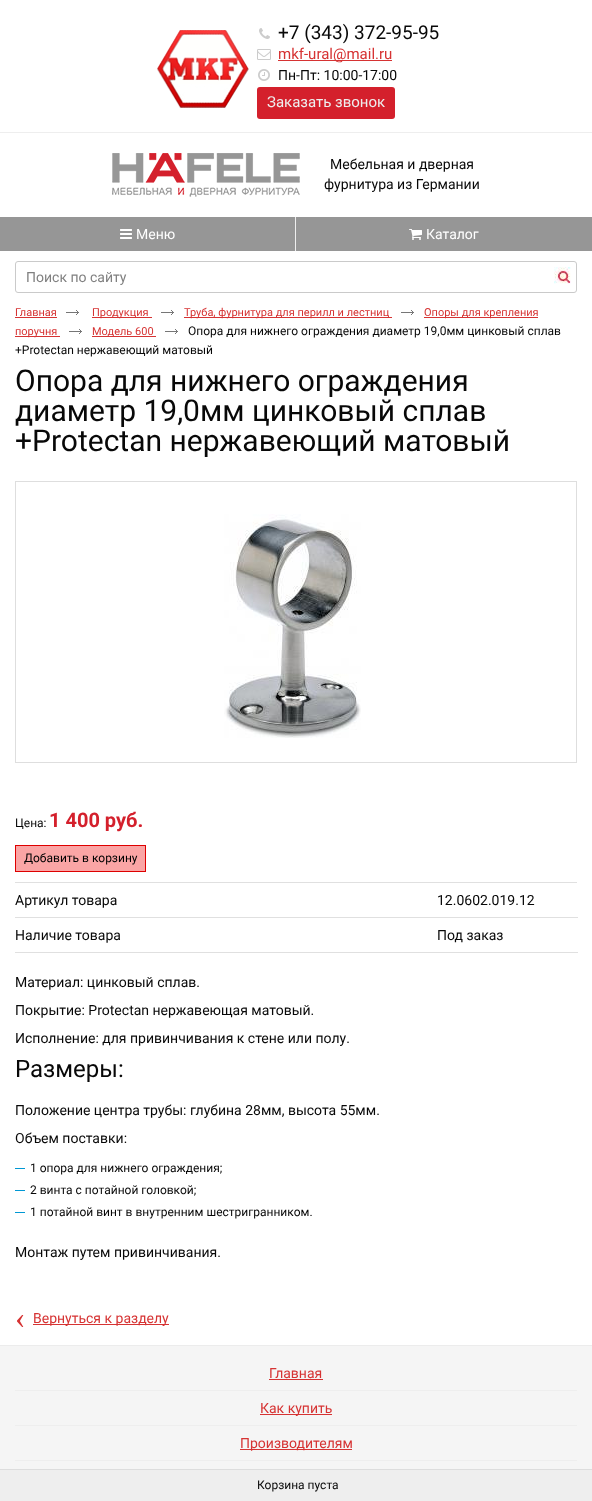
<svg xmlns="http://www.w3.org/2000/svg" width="592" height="1501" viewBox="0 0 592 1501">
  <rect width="100%" height="100%" fill="#ffffff"/>
  <image x="157" y="30" width="92" height="78" href="img1.png"/>
  <image x="259" y="28" width="11" height="11" href="img2.png"/>
  <text x="278" y="39" font-family="Roboto" font-size="19" fill="#080808">+7 (343) 372-95-95</text>
  <image x="257" y="49" width="14" height="11" href="img3.png"/>
  <rect x="278" y="60" width="114" height="1" fill="#d63333"/>
  <text x="278" y="59" font-family="Roboto" font-size="15" fill="#d63333">mkf-ural@mail.ru</text>
  <image x="258" y="69" width="12" height="12" href="img4.png"/>
  <text x="278" y="80" font-family="Roboto" font-size="14" fill="#080808">Пн-Пт: 10:00-17:00</text>
  <rect x="257" y="87" width="138" height="32" rx="3" fill="#d4202c"/>
  <text x="267" y="107" font-family="Roboto" font-size="15" fill="#eeeeee">Заказать звонок</text>
  <rect x="0" y="132" width="592" height="1" fill="#eeeeee"/>
  <image x="112" y="153" width="188" height="44" href="img5.png"/>
  <text x="330" y="169" font-family="Roboto" font-size="14" fill="#080808">Мебельная и дверная</text>
  <text x="324" y="189" font-family="Roboto" font-size="14" fill="#080808">фурнитура из Германии</text>
  <rect x="0" y="217" width="295" height="34" fill="#969696"/>
  <rect x="295" y="217" width="1" height="34" fill="#eeeeee"/>
  <image x="120" y="229" width="12" height="10" href="img6.png"/>
  <text x="136" y="239" font-family="Roboto" font-size="14" fill="#ffffff">Меню</text>
  <rect x="296" y="217" width="296" height="34" fill="#969696"/>
  <image x="409" y="229" width="13" height="11" href="img7.png"/>
  <text x="426" y="239" font-family="Roboto" font-size="14" fill="#ffffff">Каталог</text>
  <rect x="15.5" y="261.5" width="561" height="31" rx="2.5" fill="none" stroke="#cacaca"/>
  <text x="26" y="282" font-family="Roboto" font-size="14" fill="#808080">Поиск по сайту</text>
  <image x="554" y="267" width="17" height="17" href="img8.png"/>
  <text x="15" y="316" font-family="Roboto" font-size="11" fill="#d63333">Главная</text>
  <rect x="15" y="317" width="42" height="1" fill="#d63333"/>
  <image x="66" y="310" width="13" height="5" href="img9.png"/>
  <rect x="92" y="317" width="60" height="1" fill="#d63333"/>
  <text x="92" y="316" font-family="Roboto" font-size="11" fill="#d63333">Продукция</text>
  <image x="161" y="310" width="13" height="5" href="img9.png"/>
  <rect x="184" y="317" width="208" height="1" fill="#d63333"/>
  <text x="184" y="316" font-family="Roboto" font-size="11" fill="#d63333">Труба, фурнитура для перилл и лестниц</text>
  <image x="401" y="310" width="13" height="5" href="img9.png"/>
  <rect x="424" y="317" width="114" height="1" fill="#d63333"/>
  <text x="424" y="316" font-family="Roboto" font-size="11" fill="#d63333">Опоры для крепления</text>
  <rect x="15" y="336" width="45" height="1" fill="#d63333"/>
  <text x="15" y="335" font-family="Roboto" font-size="11" fill="#d63333">поручня</text>
  <image x="69" y="329" width="13" height="5" href="img9.png"/>
  <rect x="92" y="336" width="64" height="1" fill="#d63333"/>
  <text x="92" y="335" font-family="Roboto" font-size="11" fill="#d63333">Модель 600</text>
  <image x="165" y="329" width="13" height="5" href="img9.png"/>
  <text x="188" y="335" font-family="Roboto" font-size="12" fill="#080808">Опора для нижнего ограждения диаметр 19,0мм цинковый сплав</text>
  <text x="15" y="354" font-family="Roboto" font-size="12" fill="#080808">+Protectan нержавеющий матовый</text>
  <text x="15" y="391" font-family="Roboto" font-size="30" fill="#080808">Опора для нижнего ограждения</text>
  <text x="15" y="421" font-family="Roboto" font-size="30" fill="#080808">диаметр 19,0мм цинковый сплав</text>
  <text x="15" y="451" font-family="Roboto" font-size="30" fill="#080808">+Protectan нержавеющий матовый</text>
  <rect x="15.5" y="481.5" width="561" height="281" fill="none" stroke="#dedede"/>
  <image x="224" y="514" width="137" height="224" href="img10.png"/>
  <text x="15" y="827" font-family="Roboto" font-size="12" fill="#080808">Цена:</text>
  <text x="49" y="827" font-family="Roboto" font-size="20" font-weight="bold" fill="#d4202c">1 400 руб.</text>
  <rect x="15.5" y="845.5" width="130" height="26" fill="#faa5a5" stroke="#de0000"/>
  <text x="24" y="862" font-family="Roboto" font-size="12" fill="#000000">Добавить в корзину</text>
  <rect x="15" y="882" width="562" height="1" fill="#e0e0e0"/>
  <text x="15" y="905" font-family="Roboto" font-size="14" fill="#080808">Артикул товара</text>
  <rect x="15" y="917" width="563" height="1" fill="#e0e0e0"/>
  <text x="437" y="905" font-family="Roboto" font-size="14" fill="#080808">12.0602.019.12</text>
  <text x="15" y="940" font-family="Roboto" font-size="14" fill="#080808">Наличие товара</text>
  <rect x="15" y="952" width="563" height="1" fill="#e0e0e0"/>
  <text x="437" y="940" font-family="Roboto" font-size="14" fill="#080808">Под заказ</text>
  <text x="15" y="987" font-family="Roboto" font-size="14" fill="#080808">Материал: цинковый сплав.</text>
  <text x="15" y="1015" font-family="Roboto" font-size="14" fill="#080808">Покрытие: Protectan нержавеющая матовый.</text>
  <text x="15" y="1043" font-family="Roboto" font-size="14" fill="#080808">Исполнение: для привинчивания к стене или полу.</text>
  <text x="15" y="1077" font-family="Roboto" font-size="24" fill="#080808">Размеры:</text>
  <text x="15" y="1115" font-family="Roboto" font-size="14" fill="#080808">Положение центра трубы: глубина 28мм, высота 55мм.</text>
  <text x="15" y="1143" font-family="Roboto" font-size="14" fill="#080808">Объем поставки:</text>
  <rect x="15" y="1168" width="10" height="1" fill="#0098d4"/>
  <text x="30" y="1172" font-family="Roboto" font-size="12" fill="#080808">1 опора для нижнего ограждения;</text>
  <rect x="15" y="1190" width="10" height="1" fill="#0098d4"/>
  <text x="30" y="1194" font-family="Roboto" font-size="12" fill="#080808">2 винта с потайной головкой;</text>
  <rect x="15" y="1212" width="10" height="1" fill="#0098d4"/>
  <text x="30" y="1216" font-family="Roboto" font-size="12" fill="#080808">1 потайной винт в внутренним шестригранником.</text>
  <text x="15" y="1257" font-family="Roboto" font-size="14" fill="#080808">Монтаж путем привинчивания.</text>
  <text x="15" y="1328" font-family="Liberation Serif" font-size="31" fill="#d63333">‹</text>
  <rect x="33" y="1324" width="136" height="1" fill="#d63333"/>
  <text x="33" y="1323" font-family="Roboto" font-size="14" fill="#d63333">Вернуться к разделу</text>
  <rect x="0" y="1345" width="592" height="1" fill="#ececec"/>
  <rect x="0" y="1346" width="592" height="123" fill="#f5f5f5"/>
  <rect x="15" y="1390" width="562" height="1" fill="#eeeeee"/>
  <text x="269" y="1378" font-family="Roboto" font-size="14" fill="#d63333">Главная</text>
  <rect x="269" y="1379" width="54" height="1" fill="#d63333"/>
  <rect x="15" y="1425" width="562" height="1" fill="#eeeeee"/>
  <rect x="260" y="1414" width="72" height="1" fill="#d63333"/>
  <text x="260" y="1413" font-family="Roboto" font-size="14" fill="#d63333">Как купить</text>
  <rect x="15" y="1460" width="562" height="1" fill="#eeeeee"/>
  <rect x="240" y="1449" width="112" height="1" fill="#d63333"/>
  <text x="240" y="1448" font-family="Roboto" font-size="14" fill="#d63333">Производителям</text>
  <rect x="0" y="1470" width="592" height="31" fill="#eeeeee"/>
  <rect x="0" y="1469" width="592" height="1" fill="#dddddd"/>
  <text x="257" y="1489" font-family="Roboto" font-size="12" fill="#080808">Корзина пуста</text>
</svg>
